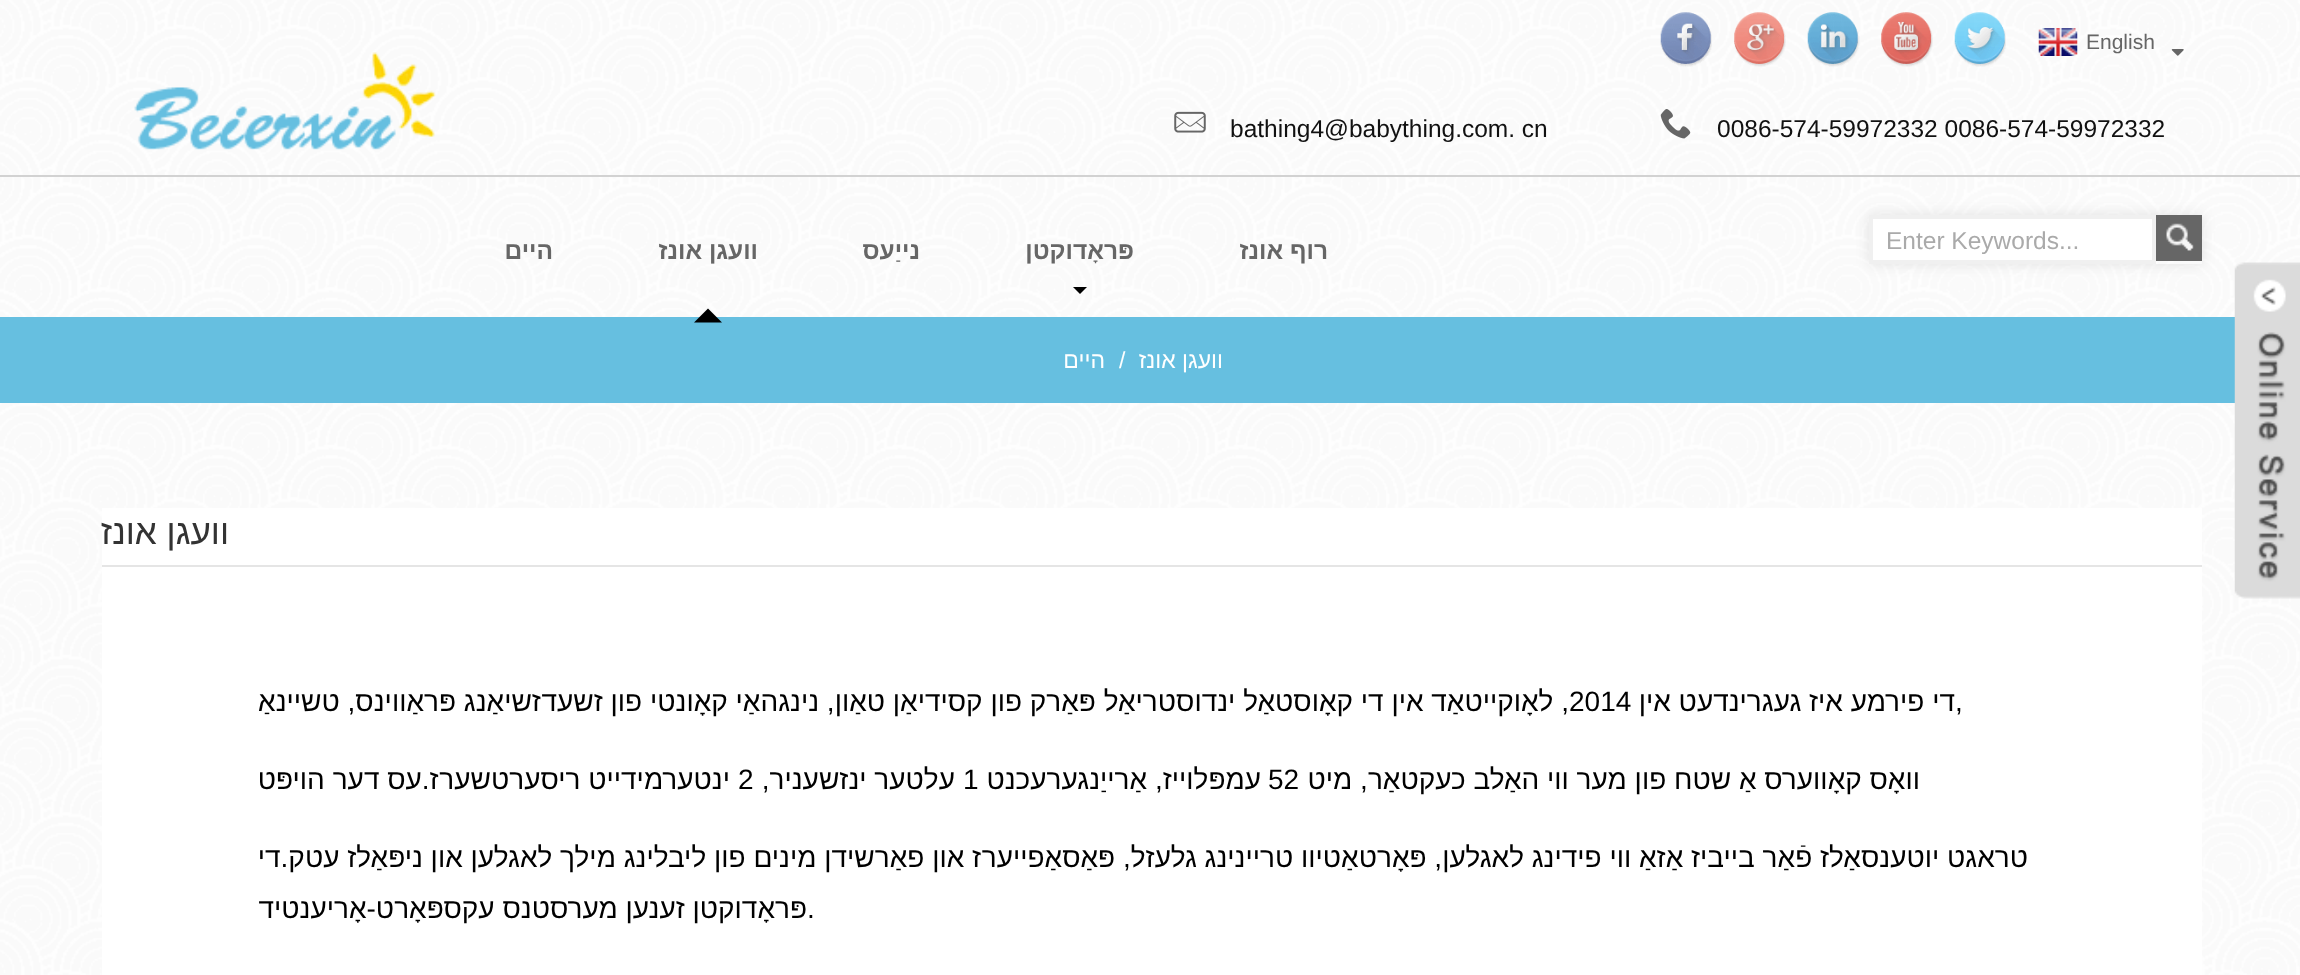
<svg xmlns="http://www.w3.org/2000/svg" width="2300" height="975" viewBox="0 0 2300 975">
  <defs>
    <clipPath id="clip1"><path d="M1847 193H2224V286H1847ZM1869 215H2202V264H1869Z" clip-rule="evenodd"/></clipPath>
    <filter id="blur1" x="-50%" y="-200%" width="200%" height="500%"><feGaussianBlur stdDeviation="7"/></filter>
  </defs>
  <rect width="100%" height="100%" fill="#ffffff"/>
  <image x="0" y="0" width="2300" height="975" href="img1.png"/>
  <rect x="0" y="175" width="2300" height="2" fill="#d2d2d2"/>
  <image x="2171" y="49" width="13" height="7" href="img2.png"/>
  <text x="2086" y="49" font-family="Liberation Sans" font-size="21" fill="#666666">English</text>
  <image x="2038" y="28" width="40" height="28" href="img3.png"/>
  <image x="1954" y="12" width="52" height="55" href="img4.png"/>
  <image x="1881" y="12" width="52" height="55" href="img5.png"/>
  <image x="1807" y="12" width="53" height="55" href="img6.png"/>
  <image x="1734" y="12" width="52" height="55" href="img7.png"/>
  <image x="1660" y="12" width="52" height="55" href="img8.png"/>
  <text x="1717" y="137" font-family="Liberation Sans" font-size="24.5" fill="#111111">0086-574-59972332 0086-574-59972332</text>
  <image x="1660" y="109" width="31" height="30" href="img9.png"/>
  <text x="1230" y="137" font-family="Liberation Sans" font-size="24.5" fill="#111111">bathing4@babything.com. cn</text>
  <image x="1174" y="111" width="32" height="22" href="img10.png"/>
  <image x="134" y="52" width="302" height="98" href="img11.png"/>
  <g clip-path="url(#clip1)">
    <rect x="1869" y="215" width="333" height="49" fill="#000000" fill-opacity="0.1" filter="url(#blur1)"/>
  </g>
  <rect x="2156" y="215" width="46" height="46" fill="#666666"/>
  <image x="2166" y="223" width="28" height="28" href="img12.png"/>
  <rect x="1871" y="217" width="283" height="45" fill="#ffffff" stroke="#f0f0f0" stroke-width="4"/>
  <text x="1886" y="249" font-family="Liberation Sans" font-size="24.5" fill="#aaaaaa">Enter Keywords...</text>
  <text x="1328" y="259" font-family="Liberation Sans" font-size="24.5" font-weight="bold" direction="rtl" fill="#666666">רוף אונז</text>
  <text x="1134" y="259" font-family="Liberation Sans" font-size="24.5" font-weight="bold" direction="rtl" fill="#666666">פּראָדוקטן</text>
  <path d="M1073 287H1087L1080 294Z" fill="#000000"/>
  <text x="920" y="259" font-family="Liberation Sans" font-size="24.5" font-weight="bold" direction="rtl" fill="#666666">נייַעס</text>
  <text x="758" y="259" font-family="Liberation Sans" font-size="24.5" font-weight="bold" direction="rtl" fill="#666666">וועגן אונז</text>
  <rect x="0" y="317" width="2235" height="86" fill="#66bfe0"/>
  <path d="M722 322.5H694L708 308.5Z" fill="#000000"/>
  <text x="553" y="259" font-family="Liberation Sans" font-size="24.5" font-weight="bold" direction="rtl" fill="#666666">היים</text>
  <image x="2234" y="262" width="66" height="337" href="img13.png"/>
  <text x="1223" y="368" font-family="Liberation Sans" font-size="23" direction="rtl" fill="#ffffff">וועגן אונז</text>
  <text x="1119" y="368" font-family="Liberation Sans" font-size="23" fill="#ffffff">/</text>
  <text x="1105" y="368" font-family="Liberation Sans" font-size="23" direction="rtl" fill="#ffffff">היים</text>
  <rect x="102" y="508" width="2100" height="467" fill="#ffffff"/>
  <rect x="102" y="565" width="2100" height="2" fill="#e5e5e5"/>
  <text x="229" y="544" font-family="Liberation Sans" font-size="35" direction="rtl" fill="#333333">וועגן אונז</text>
  <text x="1955" y="711" font-family="Liberation Sans" font-size="28" fill="#000000">,</text>
  <text x="1955" y="711" font-family="Liberation Sans" font-size="28" direction="rtl" fill="#000000">די פירמע איז געגרינדעט אין</text>
  <text x="1569" y="711" font-family="Liberation Sans" font-size="28" fill="#000000">2014</text>
  <text x="1569" y="711" font-family="Liberation Sans" font-size="28" direction="rtl" fill="#000000">, לאָוקייטאַד אין די קאָוסטאַל ינדוסטריאַל פּאַרק פון קסידיאַן טאַון, נינגהאַי קאָונטי פון זשעדזשיאַנג פּראַווינס, טשיינאַ</text>
  <text x="1920" y="789" font-family="Liberation Sans" font-size="28" direction="rtl" fill="#000000">וואָס קאָווערס אַ שטח פון מער ווי האַלב כעקטאַר, מיט</text>
  <text x="1268" y="789" font-family="Liberation Sans" font-size="28" fill="#000000">52</text>
  <text x="1261" y="789" font-family="Liberation Sans" font-size="28" direction="rtl" fill="#000000">עמפּלוייז, אַרייַנגערעכנט</text>
  <text x="963" y="789" font-family="Liberation Sans" font-size="28" fill="#000000">1</text>
  <text x="955" y="789" font-family="Liberation Sans" font-size="28" direction="rtl" fill="#000000">עלטער ינזשעניר,</text>
  <text x="738" y="789" font-family="Liberation Sans" font-size="28" fill="#000000">2</text>
  <text x="730" y="789" font-family="Liberation Sans" font-size="28" direction="rtl" fill="#000000">ינטערמידייט ריסערטשערז.עס דער הויפּט</text>
  <text x="2028" y="867" font-family="Liberation Sans" font-size="28" direction="rtl" fill="#000000">טראגט יוטענסאַלז פֿאַר בייביז אַזאַ ווי פידינג לאגלען, פּאָרטאַטיוו טריינינג גלעזל, פּאַסאַפייערז און פאַרשידן מינים פון ליבלינג מילך לאגלען און ניפּאַלז עטק.די</text>
  <text x="807" y="918" font-family="Liberation Sans" font-size="28" fill="#000000">.</text>
  <text x="807" y="918" font-family="Liberation Sans" font-size="28" direction="rtl" fill="#000000">פּראָדוקטן זענען מערסטנס עקספּאָרט-אָריענטיד</text>
</svg>
